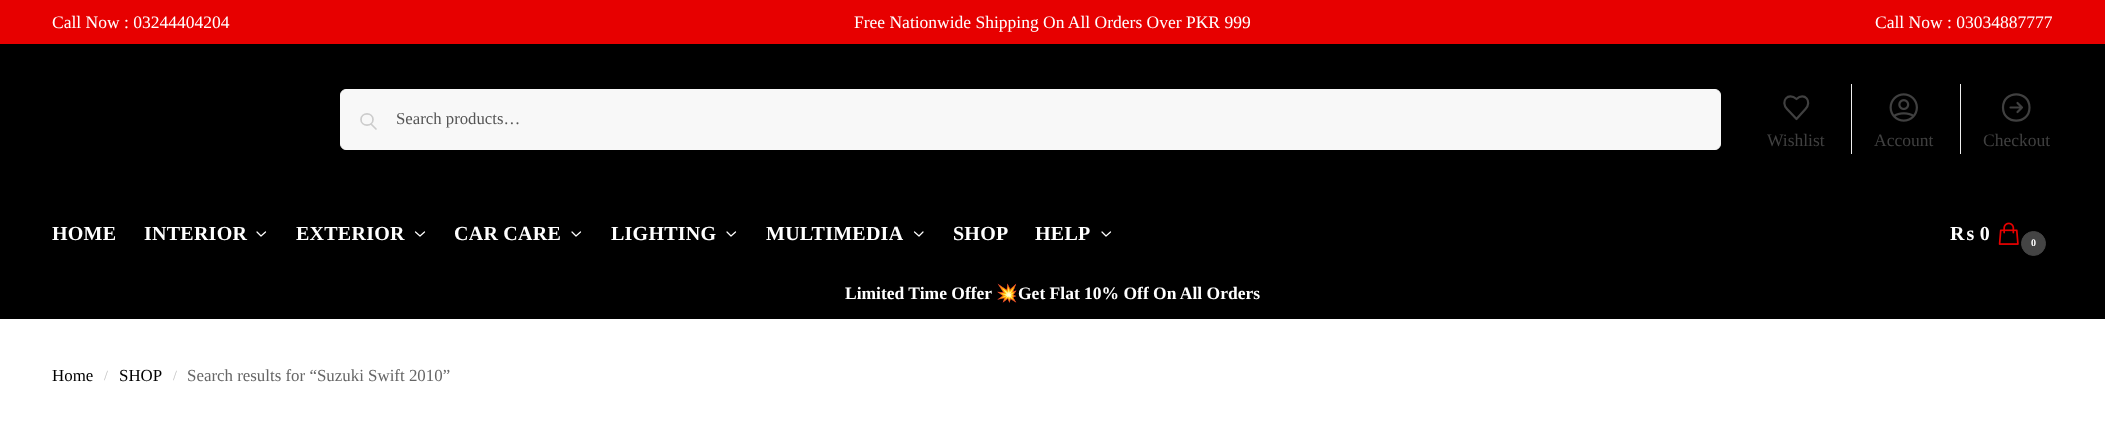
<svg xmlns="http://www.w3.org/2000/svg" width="2123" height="428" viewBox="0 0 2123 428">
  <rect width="100%" height="100%" fill="#ffffff"/>
  <rect x="0" y="0" width="2105" height="44" fill="#e70000"/>
  <rect x="0" y="44" width="2105" height="1" fill="#000000"/>
  <text x="52" y="28" font-family="Liberation Serif" font-size="17.5" fill="#ffffff">Call Now : 03244404204</text>
  <text x="854" y="28" font-family="Liberation Serif" font-size="17.5" fill="#ffffff">Free Nationwide Shipping On All Orders Over PKR 999</text>
  <text x="1875" y="28" font-family="Liberation Serif" font-size="17.5" fill="#ffffff">Call Now : 03034887777</text>
  <rect x="0" y="45" width="2105" height="274" fill="#000000"/>
  <rect x="340.5" y="89.5" width="1380" height="60" rx="5.5" fill="#f8f8f8" stroke="#f8f8f8"/>
  <path d="M376 129L371 124M373 119.5C373 127 361 127 361 119.5C361 112 373 112 373 119.5Z" fill="none" stroke="#cccccc" stroke-width="1.7" stroke-linecap="round" stroke-linejoin="round"/>
  <text x="396" y="124" font-family="Liberation Serif" font-size="16.75" fill="#555555">Search products…</text>
  <path d="M1796.5 99C1788 91.5 1780 101.5 1787 109L1796.5 119L1805.5 109C1812.5 101.5 1804.5 91.5 1796.5 99Z" fill="none" stroke="#404040" stroke-width="2.2" stroke-linecap="round" stroke-linejoin="round"/>
  <text x="1767" y="146" font-family="Liberation Serif" font-size="17.5" fill="#404040">Wishlist</text>
  <rect x="1851" y="84" width="1" height="70" fill="#eeeeee"/>
  <image x="1889" y="93" width="29" height="29" href="img1.png"/>
  <text x="1874" y="146" font-family="Liberation Serif" font-size="17.5" fill="#404040">Account</text>
  <rect x="1960" y="84" width="1" height="70" fill="#eeeeee"/>
  <path d="M2017.5 103L2022 107.5M2022 107.5L2017.5 112M2022 107.5H2010.5M2029.5 107.5C2029.5 125 2003 125 2003 107.5C2003 90 2029.5 90 2029.5 107.5Z" fill="none" stroke="#404040" stroke-width="2.2" stroke-linecap="round" stroke-linejoin="round"/>
  <text x="1983" y="146" font-family="Liberation Serif" font-size="17.5" fill="#404040">Checkout</text>
  <text x="52" y="240" font-family="Liberation Serif" font-size="20" font-weight="bold" letter-spacing="0.25" fill="#ffffff">HOME</text>
  <text x="144" y="240" font-family="Liberation Serif" font-size="20" font-weight="bold" letter-spacing="0.25" fill="#ffffff">INTERIOR</text>
  <path d="M265.5 232L261 236L257 232" fill="none" stroke="#ffffff" stroke-width="1.2" stroke-linecap="round" stroke-linejoin="round"/>
  <text x="296" y="240" font-family="Liberation Serif" font-size="20" font-weight="bold" letter-spacing="0.25" fill="#ffffff">EXTERIOR</text>
  <path d="M424.5 232L420 236L415.5 232" fill="none" stroke="#ffffff" stroke-width="1.2" stroke-linecap="round" stroke-linejoin="round"/>
  <text x="454" y="240" font-family="Liberation Serif" font-size="20" font-weight="bold" letter-spacing="0.25" fill="#ffffff">CAR CARE</text>
  <path d="M580.5 232L576 236L572 232" fill="none" stroke="#ffffff" stroke-width="1.2" stroke-linecap="round" stroke-linejoin="round"/>
  <text x="611" y="240" font-family="Liberation Serif" font-size="20" font-weight="bold" letter-spacing="0.25" fill="#ffffff">LIGHTING</text>
  <path d="M735.5 232L731 236L727 232" fill="none" stroke="#ffffff" stroke-width="1.2" stroke-linecap="round" stroke-linejoin="round"/>
  <text x="766" y="240" font-family="Liberation Serif" font-size="20" font-weight="bold" letter-spacing="0.25" fill="#ffffff">MULTIMEDIA</text>
  <path d="M923 232L919 236L914.5 232" fill="none" stroke="#ffffff" stroke-width="1.2" stroke-linecap="round" stroke-linejoin="round"/>
  <text x="953" y="240" font-family="Liberation Serif" font-size="20" font-weight="bold" letter-spacing="0.25" fill="#ffffff">SHOP</text>
  <text x="1035" y="240" font-family="Liberation Serif" font-size="20" font-weight="bold" letter-spacing="0.25" fill="#ffffff">HELP</text>
  <path d="M1110.5 232L1106 236L1102 232" fill="none" stroke="#ffffff" stroke-width="1.2" stroke-linecap="round" stroke-linejoin="round"/>
  <text x="1950" y="240" font-family="Liberation Serif" font-size="20" font-weight="bold" letter-spacing="0.25" fill="#ffffff">₨ 0</text>
  <image x="1998" y="222" width="21" height="23" href="img2.png"/>
  <circle cx="2033.5" cy="243.5" r="12" fill="#444444" stroke="#444444"/>
  <text x="2031" y="246" font-family="Liberation Serif" font-size="10" font-weight="bold" letter-spacing="0.25" fill="#ffffff">0</text>
  <text x="845" y="299" font-family="Liberation Serif" font-size="17.5" font-weight="bold" fill="#ffffff">Limited Time Offer</text>
  <text x="996" y="299" font-family="Noto Color Emoji" font-size="17.5" font-weight="bold" fill="#ffffff">💥</text>
  <text x="1018" y="299" font-family="Liberation Serif" font-size="17.5" font-weight="bold" fill="#ffffff">Get Flat 10% Off On All Orders</text>
  <text x="52" y="381" font-family="Liberation Serif" font-size="16.9" fill="#000000">Home</text>
  <text x="104" y="380" font-family="Liberation Serif" font-size="14" fill="#c2c2c2">/</text>
  <text x="119" y="381" font-family="Liberation Serif" font-size="16.9" fill="#000000">SHOP</text>
  <text x="173" y="380" font-family="Liberation Serif" font-size="14" fill="#c2c2c2">/</text>
  <text x="187" y="381" font-family="Liberation Serif" font-size="16.9" fill="#666666">Search results for “Suzuki Swift 2010”</text>
</svg>
